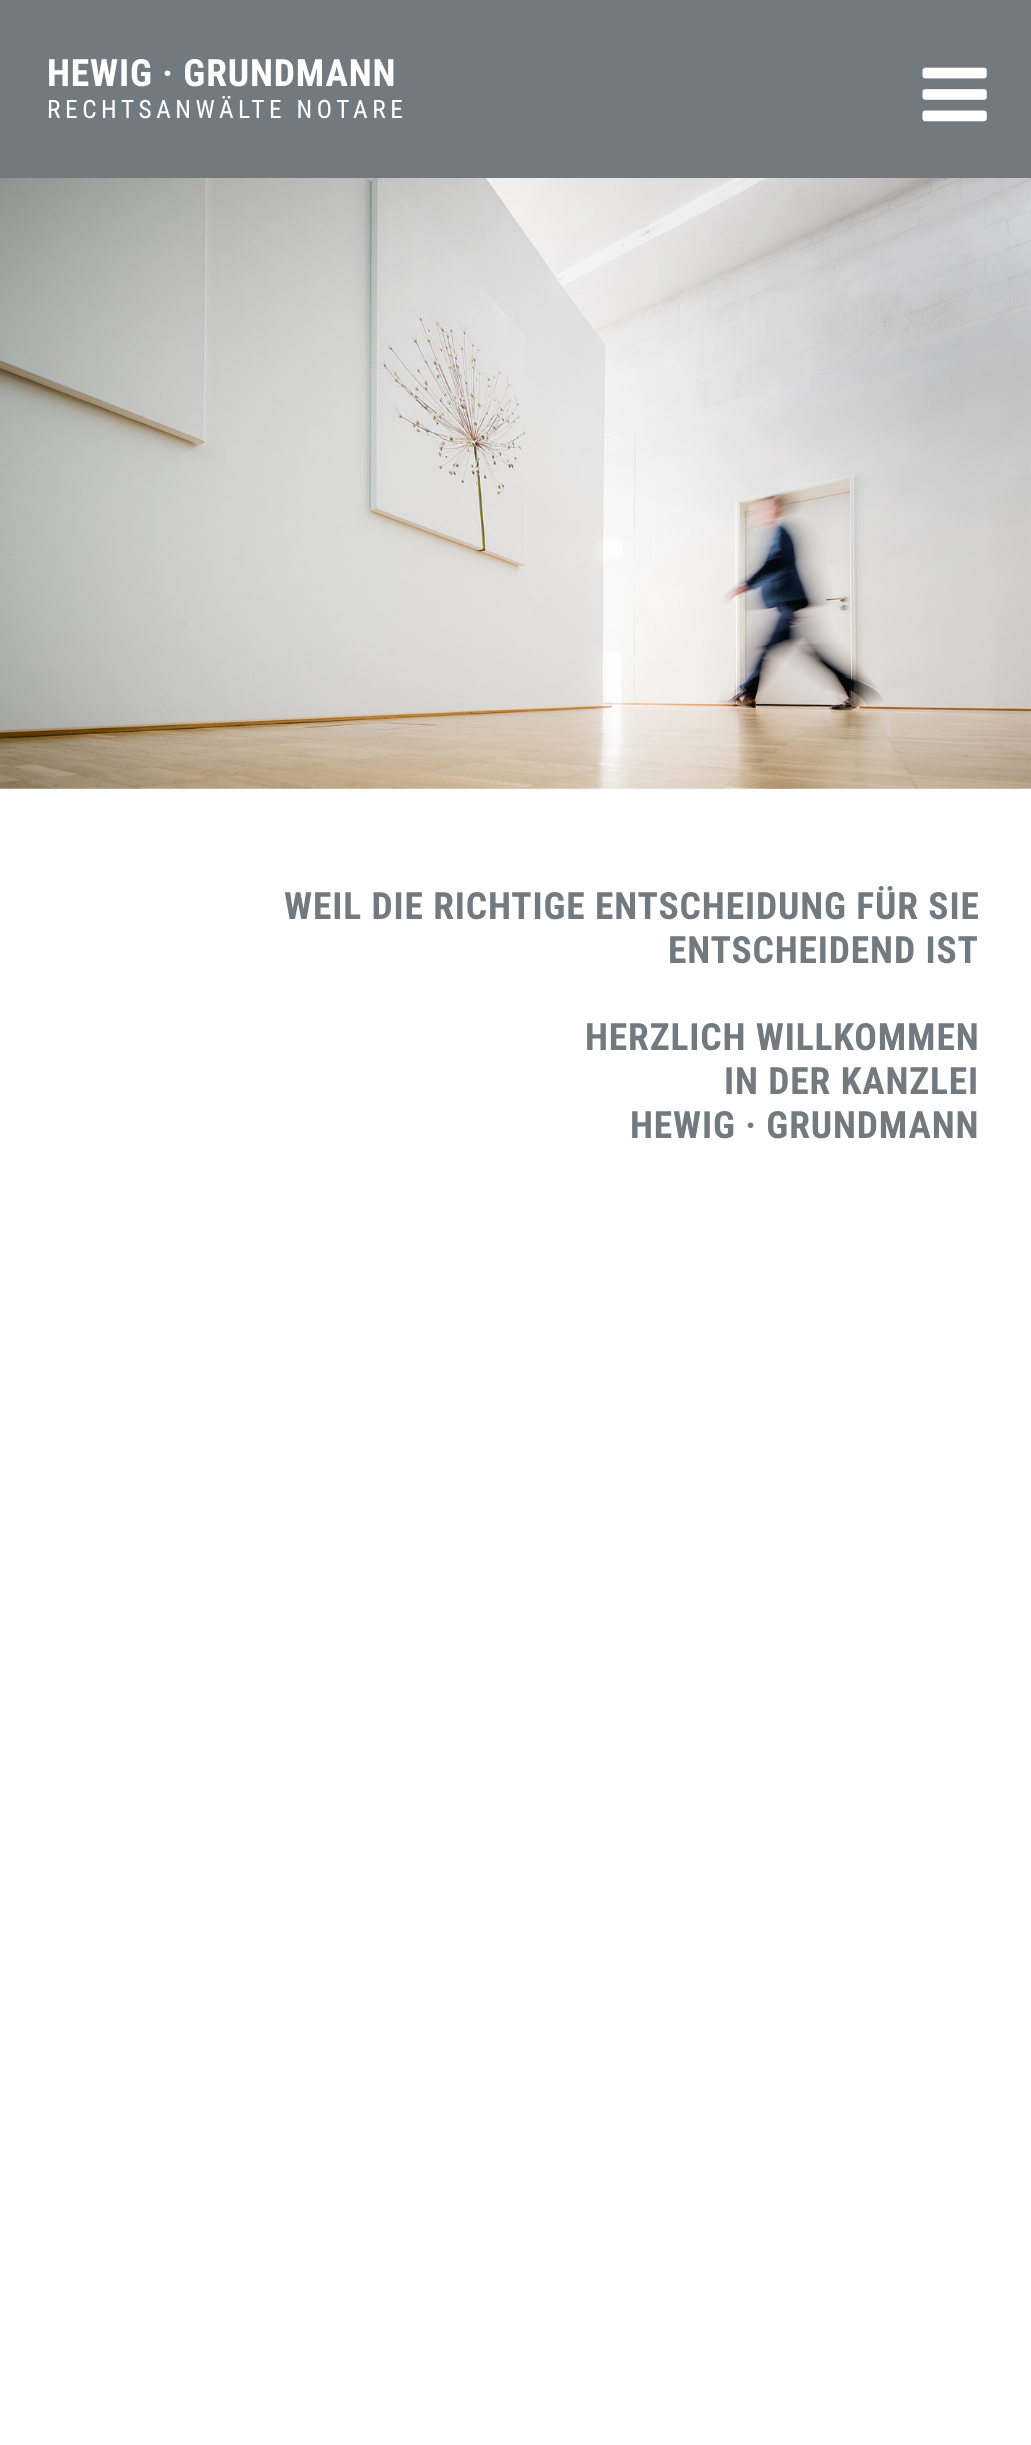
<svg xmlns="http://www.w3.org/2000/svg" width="1031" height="2445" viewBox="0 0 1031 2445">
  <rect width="100%" height="100%" fill="#ffffff"/>
  <rect x="0" y="0" width="1031" height="178" fill="#72797f"/>
  <text x="47" y="86" font-family="Roboto Condensed" font-size="37.5" font-weight="bold" letter-spacing="0.85" fill="#ffffff">HEWIG · GRUNDMANN</text>
  <text x="47" y="118" font-family="Roboto Condensed" font-size="25.25" letter-spacing="4.6" fill="#ffffff">RECHTSANWÄLTE NOTARE</text>
  <image x="922" y="67" width="65" height="55" href="img1.png"/>
  <image x="0" y="178" width="1031" height="611" href="img2.png"/>
  <text x="284" y="919" font-family="Roboto Condensed" font-size="37.5" font-weight="bold" letter-spacing="0.85" fill="#72797f">WEIL DIE RICHTIGE ENTSCHEIDUNG FÜR SIE</text>
  <text x="668" y="963" font-family="Roboto Condensed" font-size="37.5" font-weight="bold" letter-spacing="0.85" fill="#72797f">ENTSCHEIDEND IST</text>
  <text x="585" y="1050" font-family="Roboto Condensed" font-size="37.5" font-weight="bold" letter-spacing="0.85" fill="#72797f">HERZLICH WILLKOMMEN</text>
  <text x="724" y="1094" font-family="Roboto Condensed" font-size="37.5" font-weight="bold" letter-spacing="0.85" fill="#72797f">IN DER KANZLEI</text>
  <text x="630" y="1138" font-family="Roboto Condensed" font-size="37.5" font-weight="bold" letter-spacing="0.85" fill="#72797f">HEWIG · GRUNDMANN</text>
</svg>
